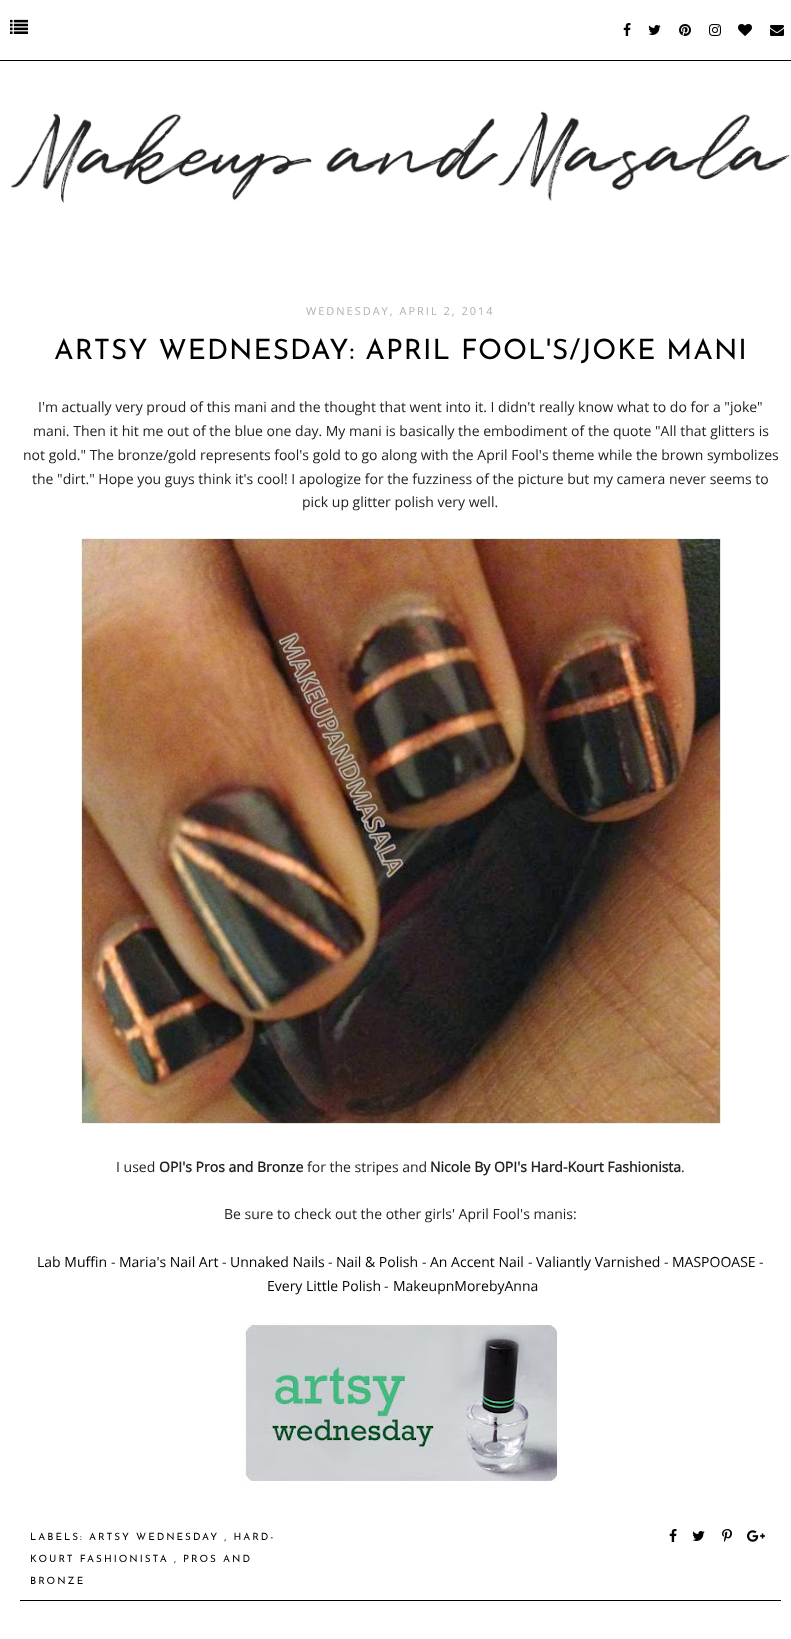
<svg xmlns="http://www.w3.org/2000/svg" width="791" height="1639" viewBox="0 0 791 1639">
  <rect width="100%" height="100%" fill="#ffffff"/>
  <rect x="0" y="60" width="791" height="1" fill="#000000"/>
  <image x="10" y="19" width="18" height="15" href="img1.png"/>
  <image x="623" y="23" width="8" height="13" href="img2.png"/>
  <image x="648" y="25" width="13" height="10" href="img3.png"/>
  <image x="679" y="24" width="12" height="12" href="img4.png"/>
  <image x="709" y="24" width="12" height="12" href="img5.png"/>
  <image x="738" y="24" width="14" height="12" href="img6.png"/>
  <image x="770" y="25" width="14" height="11" href="img7.png"/>
  <image x="11" y="111" width="779" height="92" href="img8.png"/>
  <text x="306" y="315" font-family="Open Sans" font-size="11" letter-spacing="2" fill="#b0b0b0">WEDNESDAY, APRIL 2, 2014</text>
  <text x="54" y="359" font-family="Josefin Sans" font-size="28" font-weight="100" letter-spacing="1" fill="#000000">ARTSY WEDNESDAY: APRIL FOOL'S/JOKE MANI</text>
  <text x="38" y="412" font-family="Open Sans" font-size="14" fill="#222222">I'm actually very proud of this mani and the thought that went into it. I didn't really know what to do for a "joke"</text>
  <text x="33" y="436" font-family="Open Sans" font-size="14" fill="#222222">mani. Then it hit me out of the blue one day. My mani is basically the embodiment of the quote "All that glitters is</text>
  <text x="23" y="460" font-family="Open Sans" font-size="14" fill="#222222">not gold." The bronze/gold represents fool's gold to go along with the April Fool's theme while the brown symbolizes</text>
  <text x="32" y="484" font-family="Open Sans" font-size="14" fill="#222222">the "dirt." Hope you guys think it's cool! I apologize for the fuzziness of the picture but my camera never seems to</text>
  <text x="302" y="507" font-family="Open Sans" font-size="14" fill="#222222">pick up glitter polish very well.</text>
  <image x="81" y="538" width="640" height="586" href="img9.png"/>
  <text x="116" y="1172" font-family="Open Sans" font-size="14" fill="#222222">I used</text>
  <text x="159" y="1172" font-family="Open Sans" font-size="14" font-weight="bold" fill="#222222">OPI's Pros and Bronze</text>
  <text x="307" y="1172" font-family="Open Sans" font-size="14" fill="#222222">for the stripes and</text>
  <text x="430" y="1172" font-family="Open Sans" font-size="14" font-weight="bold" fill="#222222">Nicole By OPI's Hard-Kourt Fashionista</text>
  <text x="681" y="1172" font-family="Open Sans" font-size="14" fill="#222222">.</text>
  <text x="224" y="1219" font-family="Open Sans" font-size="14" fill="#222222">Be sure to check out the other girls' April Fool's manis:</text>
  <text x="37" y="1267" font-family="Open Sans" font-size="14" fill="#000000">Lab Muffin</text>
  <text x="111" y="1267" font-family="Open Sans" font-size="14" fill="#222222">-</text>
  <text x="119" y="1267" font-family="Open Sans" font-size="14" fill="#000000">Maria's Nail Art</text>
  <text x="222" y="1267" font-family="Open Sans" font-size="14" fill="#222222">-</text>
  <text x="230" y="1267" font-family="Open Sans" font-size="14" fill="#000000">Unnaked Nails</text>
  <text x="328" y="1267" font-family="Open Sans" font-size="14" fill="#222222">-</text>
  <text x="336" y="1267" font-family="Open Sans" font-size="14" fill="#000000">Nail &amp; Polish</text>
  <text x="422" y="1267" font-family="Open Sans" font-size="14" fill="#222222">-</text>
  <text x="430" y="1267" font-family="Open Sans" font-size="14" fill="#000000">An Accent Nail</text>
  <text x="528" y="1267" font-family="Open Sans" font-size="14" fill="#222222">-</text>
  <text x="536" y="1267" font-family="Open Sans" font-size="14" fill="#000000">Valiantly Varnished</text>
  <text x="664" y="1267" font-family="Open Sans" font-size="14" fill="#222222">-</text>
  <text x="672" y="1267" font-family="Open Sans" font-size="14" fill="#000000">MASPOOASE</text>
  <text x="759" y="1267" font-family="Open Sans" font-size="14" fill="#222222">-</text>
  <text x="267" y="1291" font-family="Open Sans" font-size="14" fill="#000000">Every Little Polish</text>
  <text x="384" y="1291" font-family="Open Sans" font-size="14" fill="#222222">-</text>
  <text x="393" y="1291" font-family="Open Sans" font-size="14" fill="#000000">MakeupnMorebyAnna</text>
  <image x="241" y="1322" width="320" height="159" href="img10.png"/>
  <rect x="20" y="1600" width="761" height="1" fill="#000000"/>
  <text x="30" y="1540" font-family="Josefin Sans" font-size="10" font-weight="100" letter-spacing="2" fill="#000000">LABELS: ARTSY WEDNESDAY , HARD-</text>
  <text x="30" y="1562" font-family="Josefin Sans" font-size="10" font-weight="100" letter-spacing="2" fill="#000000">KOURT FASHIONISTA , PROS AND</text>
  <text x="30" y="1584" font-family="Josefin Sans" font-size="10" font-weight="100" letter-spacing="2" fill="#000000">BRONZE</text>
  <image x="669" y="1529" width="8" height="13" href="img2.png"/>
  <image x="692" y="1531" width="13" height="10" href="img3.png"/>
  <image x="722" y="1529" width="10" height="13" href="img11.png"/>
  <image x="747" y="1530" width="18" height="12" href="img12.png"/>
</svg>
